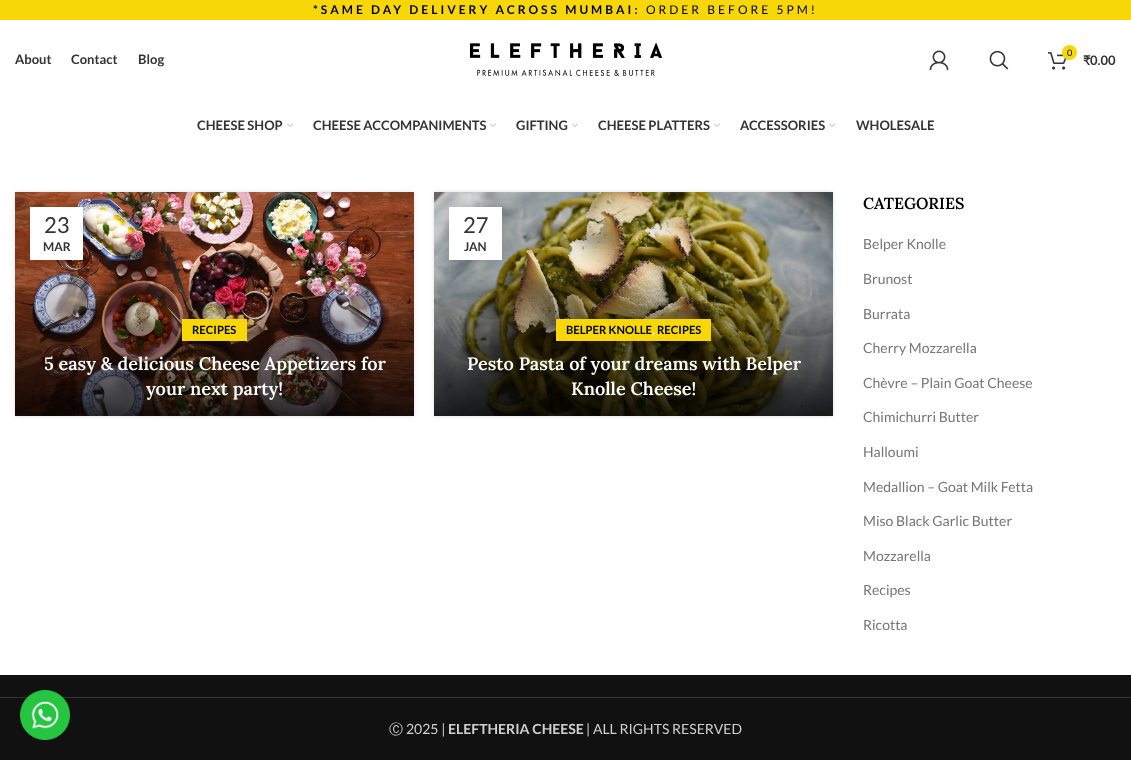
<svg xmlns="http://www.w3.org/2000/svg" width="1131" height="760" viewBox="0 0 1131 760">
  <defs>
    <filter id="blur1" x="-50%" y="-200%" width="200%" height="500%"><feGaussianBlur stdDeviation="2"/></filter>
    <filter id="blur2" x="-50%" y="-200%" width="200%" height="500%"><feGaussianBlur stdDeviation="4.5"/></filter>
    <linearGradient id="g1" gradientUnits="userSpaceOnUse" x1="215" y1="269" x2="215" y2="416"><stop offset="0.05" stop-color="#000000" stop-opacity="0"/><stop offset="0.5" stop-color="#000000" stop-opacity="0.35"/><stop offset="1" stop-color="#000000" stop-opacity="0.8"/></linearGradient>
    <linearGradient id="g2" gradientUnits="userSpaceOnUse" x1="634" y1="269" x2="634" y2="416"><stop offset="0.05" stop-color="#000000" stop-opacity="0"/><stop offset="0.5" stop-color="#000000" stop-opacity="0.35"/><stop offset="1" stop-color="#000000" stop-opacity="0.8"/></linearGradient>
  </defs>
  <rect width="100%" height="100%" fill="#ffffff"/>
  <rect x="0" y="0" width="1131" height="20" fill="#f7d708"/>
  <text x="313" y="14" font-family="Lato" font-size="12" font-weight="bold" letter-spacing="3" fill="#000000">*SAME DAY DELIVERY ACROSS MUMBAI:</text>
  <text x="646" y="14" font-family="Lato" font-size="12" letter-spacing="3" fill="#000000">ORDER BEFORE 5PM!</text>
  <text x="15" y="64" font-family="Lato" font-size="13" font-weight="bold" fill="#333333">About</text>
  <text x="71" y="64" font-family="Lato" font-size="13" font-weight="bold" fill="#333333">Contact</text>
  <text x="138" y="64" font-family="Lato" font-size="13" font-weight="bold" fill="#333333">Blog</text>
  <image x="469" y="43" width="193" height="33" href="img1.png"/>
  <image x="929" y="50" width="20" height="20" href="img2.png"/>
  <image x="989" y="50" width="20" height="20" href="img3.png"/>
  <image x="1048" y="52" width="19" height="18" href="img4.png"/>
  <circle cx="1069.5" cy="52.5" r="7.5" fill="#f7d708"/>
  <text x="1067" y="56" font-family="Lato" font-size="9" fill="#000000">0</text>
  <text x="1083" y="65" font-family="'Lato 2'" font-size="13" font-weight="bold" fill="#333333">₹</text>
  <text x="1090" y="65" font-family="Lato" font-size="13" font-weight="bold" fill="#333333">0.00</text>
  <text x="197" y="130" font-family="Lato" font-size="13" font-weight="bold" fill="#333333">CHEESE SHOP</text>
  <image x="287" y="123" width="6" height="4" href="img5.png"/>
  <text x="313" y="130" font-family="Lato" font-size="13" font-weight="bold" fill="#333333">CHEESE ACCOMPANIMENTS</text>
  <image x="490" y="123" width="6" height="4" href="img5.png"/>
  <text x="516" y="130" font-family="Lato" font-size="13" font-weight="bold" fill="#333333">GIFTING</text>
  <image x="572" y="123" width="6" height="4" href="img5.png"/>
  <text x="598" y="130" font-family="Lato" font-size="13" font-weight="bold" fill="#333333">CHEESE PLATTERS</text>
  <image x="714" y="123" width="6" height="4" href="img5.png"/>
  <text x="740" y="130" font-family="Lato" font-size="13" font-weight="bold" fill="#333333">ACCESSORIES</text>
  <image x="829" y="123" width="6" height="4" href="img5.png"/>
  <text x="856" y="130" font-family="Lato" font-size="13" font-weight="bold" fill="#333333">WHOLESALE</text>
  <rect x="15" y="192" width="399" height="224" fill="#000000" fill-opacity="0.12" filter="url(#blur1)"/>
  <image x="15" y="192" width="399" height="224" href="img6.png"/>
  <rect x="30" y="207" width="53" height="53" fill="#000000" fill-opacity="0.1" filter="url(#blur2)"/>
  <rect x="30" y="207" width="53" height="53" fill="#ffffff"/>
  <text x="44" y="233" font-family="Lato" font-size="22" fill="#333333">23</text>
  <text x="43" y="251" font-family="Lato" font-size="12" font-weight="bold" fill="#333333">MAR</text>
  <rect x="15" y="280" width="399" height="136" fill="url(#g1)"/>
  <rect x="182" y="319" width="65" height="22" fill="#f7d708"/>
  <text x="192" y="334" font-family="Lato" font-size="11.25" font-weight="bold" fill="#000000">RECIPES</text>
  <text x="44" y="370" font-family="Lora" font-size="18" font-weight="600" fill="#ffffff">5 easy &amp; delicious Cheese Appetizers for</text>
  <text x="146" y="395" font-family="Lora" font-size="18" font-weight="600" fill="#ffffff">your next party!</text>
  <rect x="434" y="192" width="399" height="224" fill="#000000" fill-opacity="0.12" filter="url(#blur1)"/>
  <image x="434" y="192" width="399" height="224" href="img7.png"/>
  <rect x="449" y="207" width="53" height="53" fill="#000000" fill-opacity="0.1" filter="url(#blur2)"/>
  <rect x="449" y="207" width="53" height="53" fill="#ffffff"/>
  <text x="463" y="233" font-family="Lato" font-size="22" fill="#333333">27</text>
  <text x="464" y="251" font-family="Lato" font-size="12" font-weight="bold" fill="#333333">JAN</text>
  <rect x="434" y="280" width="399" height="136" fill="url(#g2)"/>
  <rect x="556" y="319" width="155" height="22" fill="#f7d708"/>
  <text x="566" y="334" font-family="Lato" font-size="11.25" font-weight="bold" fill="#000000">BELPER KNOLLE</text>
  <text x="652" y="334" font-family="Lato" font-size="11.25" font-weight="bold" fill="#ffffff">,</text>
  <text x="657" y="334" font-family="Lato" font-size="11.25" font-weight="bold" fill="#000000">RECIPES</text>
  <text x="467" y="370" font-family="Lora" font-size="18" font-weight="600" fill="#ffffff">Pesto Pasta of your dreams with Belper</text>
  <text x="571" y="395" font-family="Lora" font-size="18" font-weight="600" fill="#ffffff">Knolle Cheese!</text>
  <text x="863" y="209" font-family="Lora" font-size="16" font-weight="600" fill="#000000">CATEGORIES</text>
  <text x="863" y="249" font-family="Lato" font-size="14" fill="#767676">Belper Knolle</text>
  <text x="863" y="284" font-family="Lato" font-size="14" fill="#767676">Brunost</text>
  <text x="863" y="319" font-family="Lato" font-size="14" fill="#767676">Burrata</text>
  <text x="863" y="353" font-family="Lato" font-size="14" fill="#767676">Cherry Mozzarella</text>
  <text x="863" y="388" font-family="Lato" font-size="14" fill="#767676">Chèvre – Plain Goat Cheese</text>
  <text x="863" y="422" font-family="Lato" font-size="14" fill="#767676">Chimichurri Butter</text>
  <text x="863" y="457" font-family="Lato" font-size="14" fill="#767676">Halloumi</text>
  <text x="863" y="492" font-family="Lato" font-size="14" fill="#767676">Medallion – Goat Milk Fetta</text>
  <text x="863" y="526" font-family="Lato" font-size="14" fill="#767676">Miso Black Garlic Butter</text>
  <text x="863" y="561" font-family="Lato" font-size="14" fill="#767676">Mozzarella</text>
  <text x="863" y="595" font-family="Lato" font-size="14" fill="#767676">Recipes</text>
  <text x="863" y="630" font-family="Lato" font-size="14" fill="#767676">Ricotta</text>
  <rect x="0" y="675" width="1131" height="85" fill="#111111"/>
  <rect x="0" y="697" width="1131" height="1" fill="#353535"/>
  <text x="389" y="734" font-family="WenQuanYi Zen Hei" font-size="14" font-weight="500" fill="#cfcfcf">Ⓒ</text>
  <text x="406" y="734" font-family="Lato" font-size="14" fill="#cfcfcf">2025 |</text>
  <text x="448" y="734" font-family="Lato" font-size="14" font-weight="bold" fill="#cfcfcf">ELEFTHERIA CHEESE</text>
  <text x="586" y="734" font-family="Lato" font-size="14" fill="#cfcfcf">| ALL RIGHTS RESERVED</text>
  <image x="20" y="690" width="50" height="50" href="img8.png"/>
</svg>
